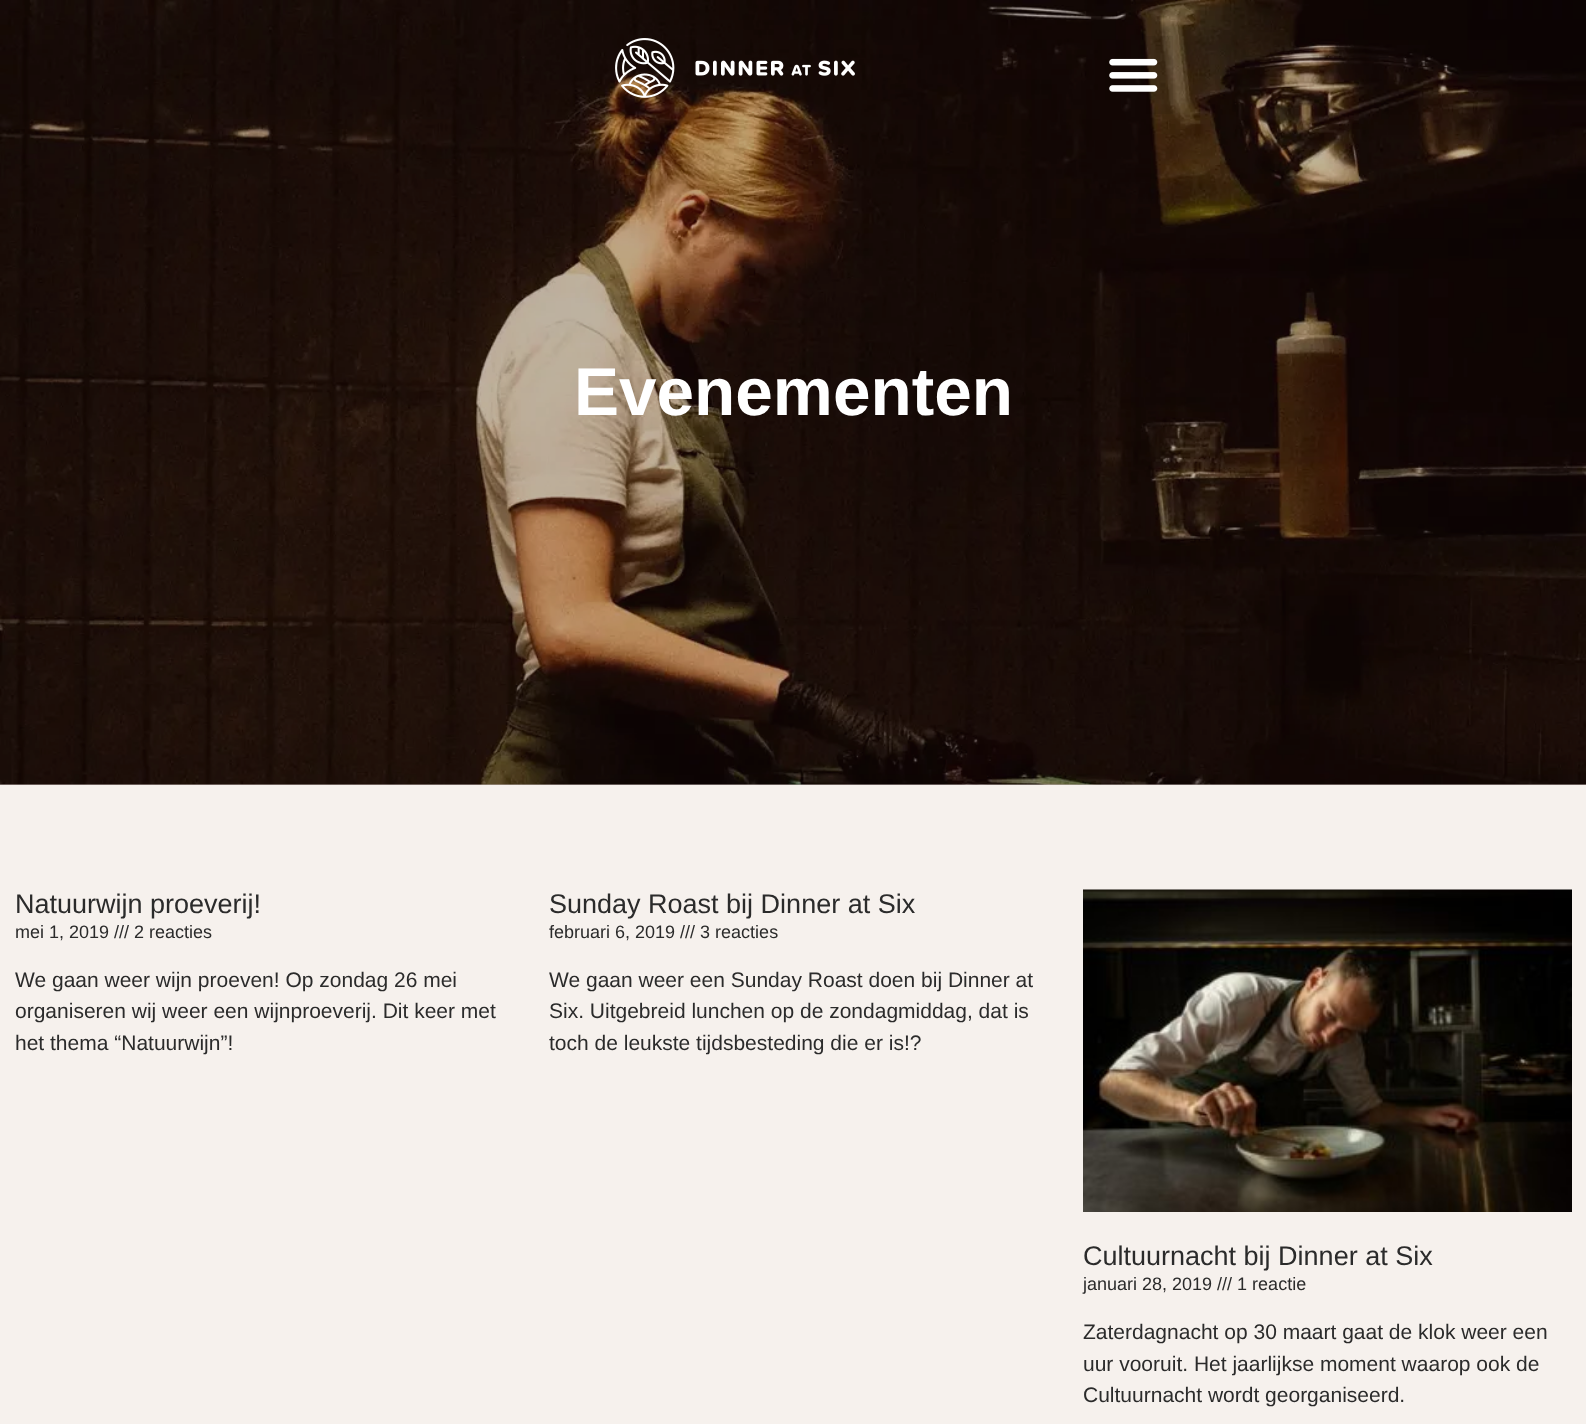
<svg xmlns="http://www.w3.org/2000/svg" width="1586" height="1424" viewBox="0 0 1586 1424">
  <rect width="100%" height="100%" fill="#f6f1ed"/>
  <rect x="0" y="784" width="1586" height="1" fill="#b8aba9"/>
  <image x="0" y="0" width="1586" height="785" href="img3.png"/>
  <image x="615" y="38" width="240" height="60" href="img1.png"/>
  <rect x="1146" y="36" width="27" height="78" fill="#000000" fill-opacity="0.05"/>
  <image x="1109" y="58" width="49" height="34" href="img2.png"/>
  <text x="574" y="415" font-family="Liberation Sans" font-size="67.5" font-weight="bold" fill="#ffffff">Evenementen</text>
  <text x="15" y="913" font-family="Liberation Sans" font-size="27" fill="#2b2b2b">Natuurwijn proeverij!</text>
  <text x="15" y="938" font-family="Liberation Sans" font-size="18" fill="#2b2b2b">mei 1, 2019 /// 2 reacties</text>
  <text x="15" y="987" font-family="Liberation Sans" font-size="21" fill="#2b2b2b">We gaan weer wijn proeven! Op zondag 26 mei</text>
  <text x="15" y="1018" font-family="Liberation Sans" font-size="21" fill="#2b2b2b">organiseren wij weer een wijnproeverij. Dit keer met</text>
  <text x="15" y="1050" font-family="Liberation Sans" font-size="21" fill="#2b2b2b">het thema “Natuurwijn”!</text>
  <text x="549" y="913" font-family="Liberation Sans" font-size="27" fill="#2b2b2b">Sunday Roast bij Dinner at Six</text>
  <text x="549" y="938" font-family="Liberation Sans" font-size="18" fill="#2b2b2b">februari 6, 2019 /// 3 reacties</text>
  <text x="549" y="987" font-family="Liberation Sans" font-size="21" fill="#2b2b2b">We gaan weer een Sunday Roast doen bij Dinner at</text>
  <text x="549" y="1018" font-family="Liberation Sans" font-size="21" fill="#2b2b2b">Six. Uitgebreid lunchen op de zondagmiddag, dat is</text>
  <text x="549" y="1050" font-family="Liberation Sans" font-size="21" fill="#2b2b2b">toch de leukste tijdsbesteding die er is!?</text>
  <image x="1083" y="889" width="489" height="323" href="img4.png"/>
  <text x="1083" y="1265" font-family="Liberation Sans" font-size="27" fill="#2b2b2b">Cultuurnacht bij Dinner at Six</text>
  <text x="1083" y="1290" font-family="Liberation Sans" font-size="18" fill="#2b2b2b">januari 28, 2019 /// 1 reactie</text>
  <text x="1083" y="1339" font-family="Liberation Sans" font-size="21" fill="#2b2b2b">Zaterdagnacht op 30 maart gaat de klok weer een</text>
  <text x="1083" y="1371" font-family="Liberation Sans" font-size="21" fill="#2b2b2b">uur vooruit. Het jaarlijkse moment waarop ook de</text>
  <text x="1083" y="1402" font-family="Liberation Sans" font-size="21" fill="#2b2b2b">Cultuurnacht wordt georganiseerd.</text>
</svg>
